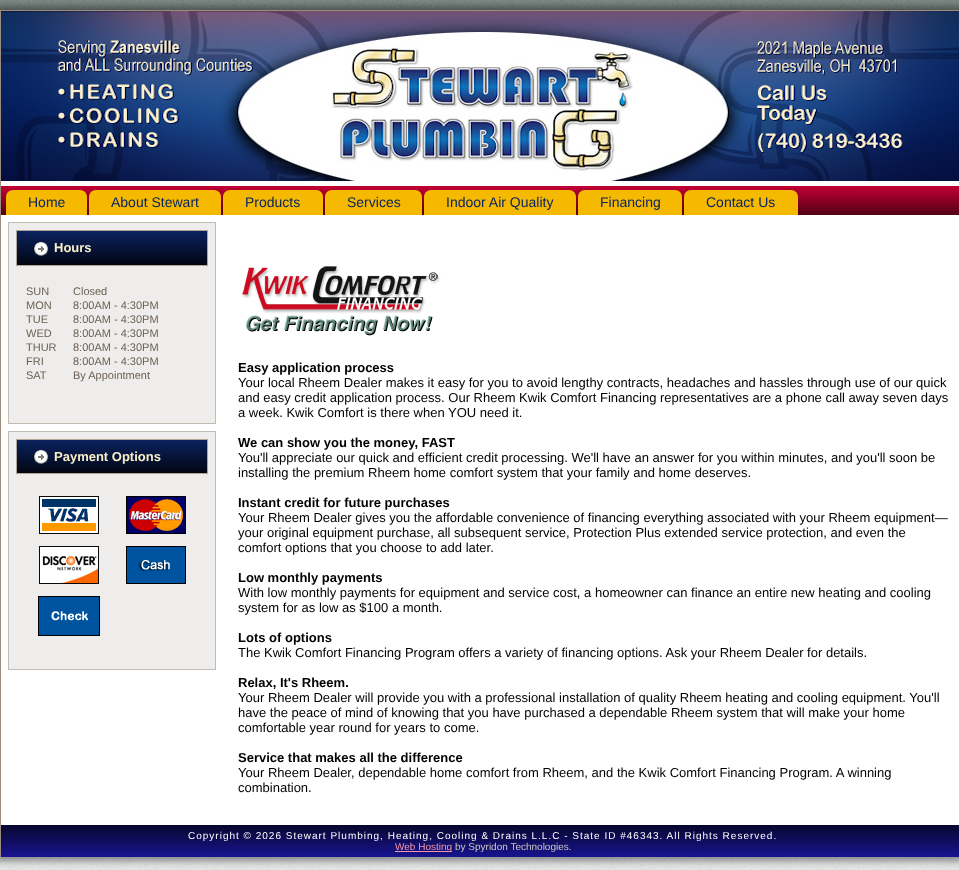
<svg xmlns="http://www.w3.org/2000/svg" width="959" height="870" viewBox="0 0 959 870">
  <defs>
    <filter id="blur1" x="-50%" y="-200%" width="200%" height="500%"><feGaussianBlur stdDeviation="3.5"/></filter>
    <linearGradient id="g1" gradientUnits="userSpaceOnUse" x1="483" y1="186" x2="483" y2="215"><stop offset="0" stop-color="#c20034"/><stop offset="1" stop-color="#520016"/></linearGradient>
    <linearGradient id="g2" gradientUnits="userSpaceOnUse" x1="112" y1="231" x2="112" y2="265"><stop offset="0" stop-color="#0b2260"/><stop offset="1" stop-color="#020612"/></linearGradient>
    <linearGradient id="g3" gradientUnits="userSpaceOnUse" x1="112" y1="440" x2="112" y2="473"><stop offset="0" stop-color="#0b2260"/><stop offset="1" stop-color="#020612"/></linearGradient>
    <linearGradient id="g4" gradientUnits="userSpaceOnUse" x1="483" y1="825" x2="483" y2="857"><stop offset="0" stop-color="#07062d"/><stop offset="1" stop-color="#181490"/></linearGradient>
  </defs>
  <rect width="100%" height="100%" fill="#ffffff"/>
  <image x="0" y="0" width="959" height="870" href="img1.png"/>
  <rect x="-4" y="6" width="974" height="855" fill="#000000" fill-opacity="0.4" filter="url(#blur1)"/>
  <rect x="1" y="215" width="958" height="610" fill="#ffffff"/>
  <rect x="0" y="10" width="959" height="1" fill="#9a8d7e"/>
  <rect x="0" y="10" width="1" height="847" fill="#9a8d7e"/>
  <image x="1" y="11" width="958" height="175" href="img2.png"/>
  <rect x="1" y="186" width="958" height="29" fill="url(#g1)"/>
  <path d="M13 190H80C84 190 87 193 87 197V215H6V197C6 193 9 190 13 190Z" fill="#f5b900"/>
  <text x="28" y="207" font-family="Liberation Sans" font-size="14" fill="#082462">Home</text>
  <path d="M96 190H214C218 190 221 193 221 197V215H89V197C89 193 92 190 96 190Z" fill="#f5b900"/>
  <text x="111" y="207" font-family="Liberation Sans" font-size="14" fill="#082462">About Stewart</text>
  <path d="M230 190H316C320 190 323 193 323 197V215H223V197C223 193 226 190 230 190Z" fill="#f5b900"/>
  <text x="245" y="207" font-family="Liberation Sans" font-size="14" fill="#082462">Products</text>
  <path d="M332 190H415C419 190 422 193 422 197V215H325V197C325 193 328 190 332 190Z" fill="#f5b900"/>
  <text x="347" y="207" font-family="Liberation Sans" font-size="14" fill="#082462">Services</text>
  <path d="M431 190H569C573 190 576 193 576 197V215H424V197C424 193 427 190 431 190Z" fill="#f5b900"/>
  <text x="446" y="207" font-family="Liberation Sans" font-size="14" fill="#082462">Indoor Air Quality</text>
  <path d="M585 190H675C679 190 682 193 682 197V215H578V197C578 193 581 190 585 190Z" fill="#f5b900"/>
  <text x="600" y="207" font-family="Liberation Sans" font-size="14" fill="#082462">Financing</text>
  <path d="M691 190H791C795 190 798 193 798 197V215H684V197C684 193 687 190 691 190Z" fill="#f5b900"/>
  <text x="706" y="207" font-family="Liberation Sans" font-size="14" fill="#082462">Contact Us</text>
  <rect x="8.5" y="222.5" width="207" height="201" fill="#efedeb" stroke="#c2bbb2"/>
  <rect x="17" y="231" width="190" height="34" fill="url(#g2)"/>
  <rect x="16.5" y="230.5" width="191" height="35" fill="none" stroke="#aea498"/>
  <image x="34" y="242" width="14" height="14" href="img3.png"/>
  <text x="54" y="252" font-family="Liberation Sans" font-size="13" font-weight="bold" fill="#f8efc9">Hours</text>
  <text x="26" y="295" font-family="Liberation Sans" font-size="11" fill="#6a5f53">SUN</text>
  <text x="73" y="295" font-family="Liberation Sans" font-size="11" fill="#6a5f53">Closed</text>
  <text x="26" y="309" font-family="Liberation Sans" font-size="11" fill="#6a5f53">MON</text>
  <text x="73" y="309" font-family="Liberation Sans" font-size="11" fill="#6a5f53">8:00AM - 4:30PM</text>
  <text x="26" y="323" font-family="Liberation Sans" font-size="11" fill="#6a5f53">TUE</text>
  <text x="73" y="323" font-family="Liberation Sans" font-size="11" fill="#6a5f53">8:00AM - 4:30PM</text>
  <text x="26" y="337" font-family="Liberation Sans" font-size="11" fill="#6a5f53">WED</text>
  <text x="73" y="337" font-family="Liberation Sans" font-size="11" fill="#6a5f53">8:00AM - 4:30PM</text>
  <text x="26" y="351" font-family="Liberation Sans" font-size="11" fill="#6a5f53">THUR</text>
  <text x="73" y="351" font-family="Liberation Sans" font-size="11" fill="#6a5f53">8:00AM - 4:30PM</text>
  <text x="26" y="365" font-family="Liberation Sans" font-size="11" fill="#6a5f53">FRI</text>
  <text x="73" y="365" font-family="Liberation Sans" font-size="11" fill="#6a5f53">8:00AM - 4:30PM</text>
  <text x="26" y="379" font-family="Liberation Sans" font-size="11" fill="#6a5f53">SAT</text>
  <text x="73" y="379" font-family="Liberation Sans" font-size="11" fill="#6a5f53">By Appointment</text>
  <rect x="8.5" y="431.5" width="207" height="238" fill="#efedeb" stroke="#c2bbb2"/>
  <rect x="17" y="440" width="190" height="33" fill="url(#g3)"/>
  <rect x="16.5" y="439.5" width="191" height="34" fill="none" stroke="#aea498"/>
  <image x="34" y="450" width="14" height="14" href="img4.png"/>
  <text x="54" y="461" font-family="Liberation Sans" font-size="13" font-weight="bold" fill="#f8efc9">Payment Options</text>
  <image x="39" y="496" width="60" height="38" href="img5.png"/>
  <image x="126" y="496" width="60" height="38" href="img6.png"/>
  <image x="39" y="546" width="60" height="38" href="img7.png"/>
  <image x="126" y="546" width="60" height="38" href="img8.png"/>
  <rect x="38.5" y="596.5" width="61" height="39" fill="none" stroke="#000000"/>
  <image x="39" y="597" width="60" height="38" href="img9.png"/>
  <image x="242" y="266" width="199" height="70" href="img10.png"/>
  <text x="238" y="372" font-family="Liberation Sans" font-size="13" font-weight="bold" fill="#000000">Easy application process</text>
  <text x="238" y="387" font-family="Liberation Sans" font-size="13" fill="#000000">Your local Rheem Dealer makes it easy for you to avoid lengthy contracts, headaches and hassles through use of our quick</text>
  <text x="238" y="402" font-family="Liberation Sans" font-size="13" fill="#000000">and easy credit application process. Our Rheem Kwik Comfort Financing representatives are a phone call away seven days</text>
  <text x="238" y="417" font-family="Liberation Sans" font-size="13" fill="#000000">a week. Kwik Comfort is there when YOU need it.</text>
  <text x="238" y="447" font-family="Liberation Sans" font-size="13" font-weight="bold" fill="#000000">We can show you the money, FAST</text>
  <text x="238" y="462" font-family="Liberation Sans" font-size="13" fill="#000000">You'll appreciate our quick and efficient credit processing. We'll have an answer for you within minutes, and you'll soon be</text>
  <text x="238" y="477" font-family="Liberation Sans" font-size="13" fill="#000000">installing the premium Rheem home comfort system that your family and home deserves.</text>
  <text x="238" y="507" font-family="Liberation Sans" font-size="13" font-weight="bold" fill="#000000">Instant credit for future purchases</text>
  <text x="238" y="522" font-family="Liberation Sans" font-size="13" fill="#000000">Your Rheem Dealer gives you the affordable convenience of financing everything associated with your Rheem equipment—</text>
  <text x="238" y="537" font-family="Liberation Sans" font-size="13" fill="#000000">your original equipment purchase, all subsequent service, Protection Plus extended service protection, and even the</text>
  <text x="238" y="552" font-family="Liberation Sans" font-size="13" fill="#000000">comfort options that you choose to add later.</text>
  <text x="238" y="582" font-family="Liberation Sans" font-size="13" font-weight="bold" fill="#000000">Low monthly payments</text>
  <text x="238" y="597" font-family="Liberation Sans" font-size="13" fill="#000000">With low monthly payments for equipment and service cost, a homeowner can finance an entire new heating and cooling</text>
  <text x="238" y="612" font-family="Liberation Sans" font-size="13" fill="#000000">system for as low as $100 a month.</text>
  <text x="238" y="642" font-family="Liberation Sans" font-size="13" font-weight="bold" fill="#000000">Lots of options</text>
  <text x="238" y="657" font-family="Liberation Sans" font-size="13" fill="#000000">The Kwik Comfort Financing Program offers a variety of financing options. Ask your Rheem Dealer for details.</text>
  <text x="238" y="687" font-family="Liberation Sans" font-size="13" font-weight="bold" fill="#000000">Relax, It's Rheem.</text>
  <text x="238" y="702" font-family="Liberation Sans" font-size="13" fill="#000000">Your Rheem Dealer will provide you with a professional installation of quality Rheem heating and cooling equipment. You'll</text>
  <text x="238" y="717" font-family="Liberation Sans" font-size="13" fill="#000000">have the peace of mind of knowing that you have purchased a dependable Rheem system that will make your home</text>
  <text x="238" y="732" font-family="Liberation Sans" font-size="13" fill="#000000">comfortable year round for years to come.</text>
  <text x="238" y="762" font-family="Liberation Sans" font-size="13" font-weight="bold" fill="#000000">Service that makes all the difference</text>
  <text x="238" y="777" font-family="Liberation Sans" font-size="13" fill="#000000">Your Rheem Dealer, dependable home comfort from Rheem, and the Kwik Comfort Financing Program. A winning</text>
  <text x="238" y="792" font-family="Liberation Sans" font-size="13" fill="#000000">combination.</text>
  <rect x="1" y="825" width="958" height="32" fill="url(#g4)"/>
  <text x="188" y="839" font-family="Liberation Sans" font-size="10" letter-spacing="1" fill="#ffffff">Copyright © 2026 Stewart Plumbing, Heating, Cooling &amp; Drains L.L.C - State ID #46343. All Rights Reserved.</text>
  <rect x="395" y="851" width="57" height="1" fill="#f797a8"/>
  <text x="395" y="850" font-family="Liberation Sans" font-size="10" fill="#f797a8">Web Hosting</text>
  <text x="455" y="850" font-family="Liberation Sans" font-size="10" fill="#cec7c0">by Spyridon Technologies.</text>
</svg>
